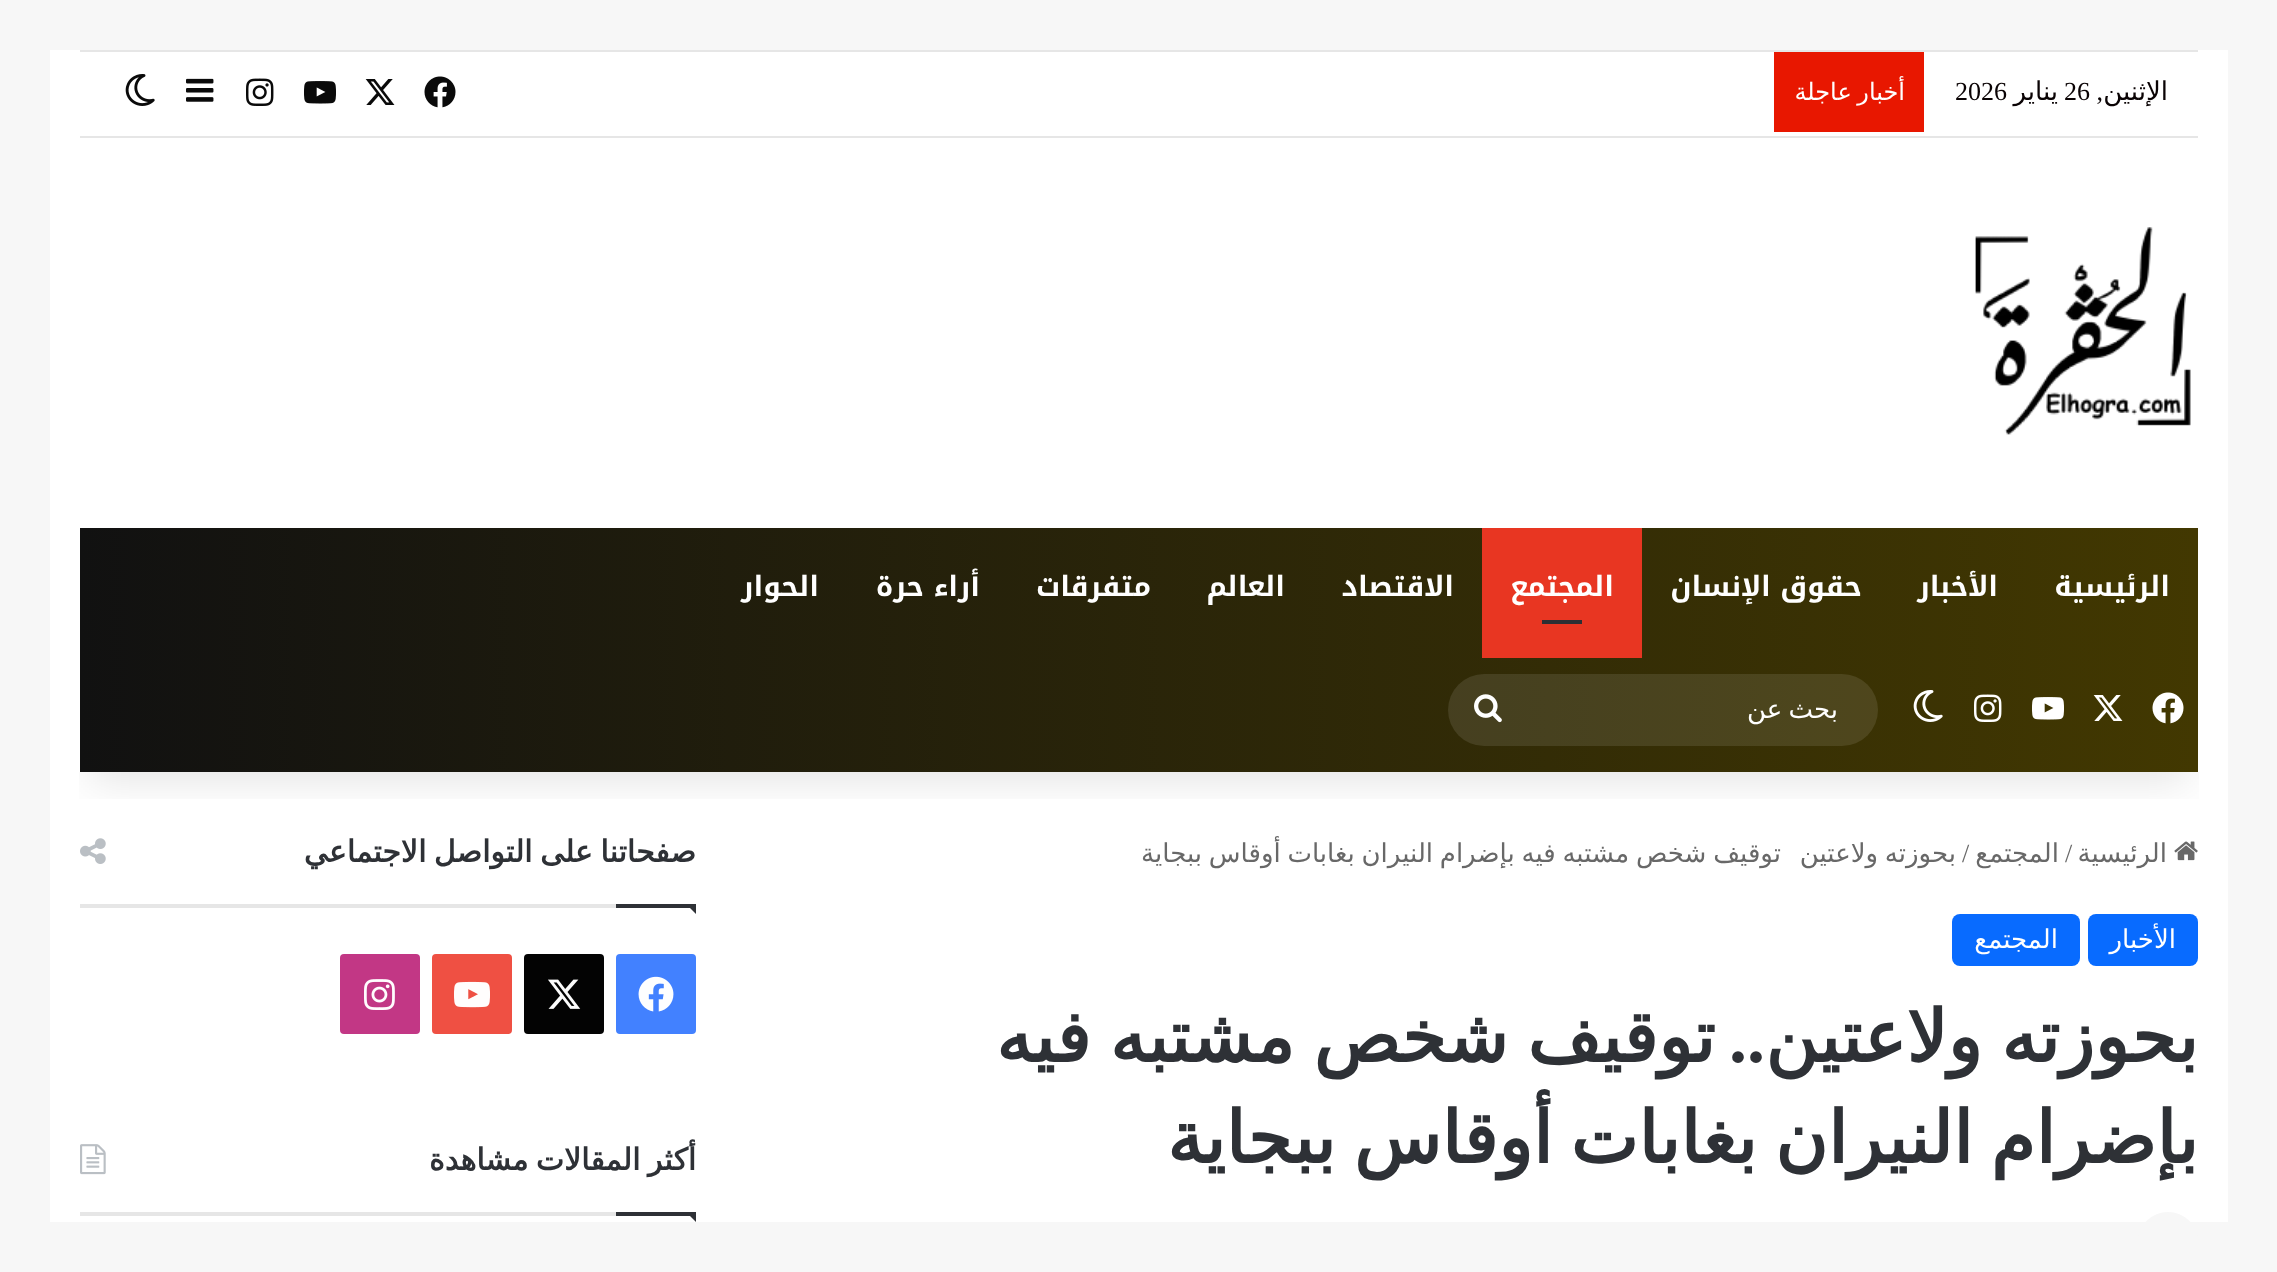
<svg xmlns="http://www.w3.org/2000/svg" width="2277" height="1272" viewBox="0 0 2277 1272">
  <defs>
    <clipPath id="clip1"><rect x="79" y="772" width="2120" height="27"/></clipPath>
    <filter id="blur1" x="-50%" y="-200%" width="200%" height="500%"><feGaussianBlur stdDeviation="20"/></filter>
    <linearGradient id="g1" gradientUnits="userSpaceOnUse" x1="80" y1="650" x2="2198" y2="650"><stop offset="0" stop-color="#111111"/><stop offset="1" stop-color="#423801"/></linearGradient>
  </defs>
  <rect width="100%" height="100%" fill="#f7f7f7"/>
  <rect x="50" y="50" width="2178" height="1172" fill="#ffffff"/>
  <image x="2174" y="841" width="24" height="20" href="img14.png"/>
  <image x="80" y="838" width="26" height="26" href="img15.png"/>
  <g clip-path="url(#clip1)">
    <rect x="90" y="140" width="2098" height="642" fill="#000000" fill-opacity="0.1" filter="url(#blur1)"/>
  </g>
  <rect x="80" y="50" width="2118" height="2" fill="#e6e6e6"/>
  <rect x="80" y="136" width="2118" height="2" fill="#e6e6e6"/>
  <text x="2168" y="100" font-family="DejaVu Sans" font-size="26" direction="rtl" fill="#0a0304">الإثنين</text>
  <text x="2103" y="100" font-family="Liberation Serif" font-size="26" direction="rtl" fill="#0a0304">,</text>
  <text x="2064" y="100" font-family="Liberation Serif" font-size="26" fill="#0a0304">26</text>
  <text x="2058" y="100" font-family="DejaVu Sans" font-size="26" direction="rtl" fill="#0a0304">يناير</text>
  <text x="1955" y="100" font-family="Liberation Serif" font-size="26" fill="#0a0304">2026</text>
  <rect x="1774" y="52" width="150" height="80" fill="#e81700"/>
  <text x="1905" y="100" word-spacing="-2" font-family="DejaVu Sans" font-size="24" direction="rtl" fill="#ffffff">أخبار عاجلة</text>
  <image x="424" y="76" width="32" height="32" href="img1.png"/>
  <image x="365" y="79" width="30" height="26" href="img2.png"/>
  <image x="304" y="81" width="32" height="23" href="img3.png"/>
  <image x="246" y="78" width="28" height="28" href="img4.png"/>
  <image x="186" y="78" width="28" height="24" href="img5.png"/>
  <image x="125" y="74" width="30" height="32" href="img6.png"/>
  <image x="1975" y="227" width="216" height="208" href="img7.png"/>
  <rect x="80" y="528" width="2118" height="244" fill="url(#g1)"/>
  <text x="2170" y="596" font-family="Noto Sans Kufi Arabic" font-size="28" font-weight="bold" direction="rtl" fill="#ffffff">الرئيسية</text>
  <text x="1998" y="596" font-family="Noto Sans Kufi Arabic" font-size="28" font-weight="bold" direction="rtl" fill="#ffffff">الأخبار</text>
  <text x="1862" y="596" font-family="Noto Sans Kufi Arabic" font-size="28" font-weight="bold" direction="rtl" fill="#ffffff">حقوق الإنسان</text>
  <rect x="1482" y="528" width="160" height="130" fill="#e83622"/>
  <text x="1614" y="596" font-family="Noto Sans Kufi Arabic" font-size="28" font-weight="bold" direction="rtl" fill="#ffffff">المجتمع</text>
  <rect x="1542" y="620" width="40" height="4" fill="#2c2f34"/>
  <text x="1454" y="596" font-family="Noto Sans Kufi Arabic" font-size="28" font-weight="bold" direction="rtl" fill="#ffffff">الاقتصاد</text>
  <text x="1285" y="596" font-family="Noto Sans Kufi Arabic" font-size="28" font-weight="bold" direction="rtl" fill="#ffffff">العالم</text>
  <text x="1151" y="596" font-family="Noto Sans Kufi Arabic" font-size="28" font-weight="bold" direction="rtl" fill="#ffffff">متفرقات</text>
  <text x="980" y="596" font-family="Noto Sans Kufi Arabic" font-size="28" font-weight="bold" direction="rtl" fill="#ffffff">أراء حرة</text>
  <text x="819" y="596" font-family="Noto Sans Kufi Arabic" font-size="28" font-weight="bold" direction="rtl" fill="#ffffff">الحوار</text>
  <image x="2152" y="692" width="32" height="32" href="img8.png"/>
  <image x="2093" y="695" width="30" height="26" href="img9.png"/>
  <image x="2032" y="697" width="32" height="23" href="img10.png"/>
  <image x="1974" y="694" width="28" height="28" href="img11.png"/>
  <image x="1913" y="690" width="30" height="32" href="img12.png"/>
  <rect x="1448" y="674" width="430" height="72" rx="36" fill="#ffffff" fill-opacity="0.1"/>
  <text x="1838" y="718" word-spacing="-2" font-family="DejaVu Sans" font-size="26" direction="rtl" fill="#ffffff">بحث عن</text>
  <image x="1474" y="694" width="28" height="29" href="img13.png"/>
  <text x="2167" y="862" font-family="DejaVu Sans" font-size="26" direction="rtl" fill="#686868">الرئيسية</text>
  <text x="2065" y="862" font-family="Liberation Serif" font-size="26" fill="#686868">/</text>
  <text x="2059" y="862" font-family="DejaVu Sans" font-size="26" direction="rtl" fill="#686868">المجتمع</text>
  <text x="1962" y="862" font-family="Liberation Serif" font-size="26" fill="#686868">/</text>
  <text x="1956" y="862" word-spacing="-1.5" font-family="DejaVu Sans" font-size="26" direction="rtl" fill="#686868">بحوزته ولاعتين</text>
  <text x="1781" y="862" word-spacing="-1.5" font-family="DejaVu Sans" font-size="26" direction="rtl" fill="#686868">توقيف شخص مشتبه فيه بإضرام النيران بغابات أوقاس ببجاية</text>
  <rect x="2088" y="914" width="110" height="52" rx="8" fill="#086bff"/>
  <text x="2176" y="948" font-family="DejaVu Sans" font-size="26" direction="rtl" fill="#ffffff">الأخبار</text>
  <rect x="1952" y="914" width="128" height="52" rx="8" fill="#086bff"/>
  <text x="2058" y="948" font-family="DejaVu Sans" font-size="26" direction="rtl" fill="#ffffff">المجتمع</text>
  <text x="2198" y="1062" word-spacing="-4" font-family="DejaVu Sans" font-size="72" font-weight="bold" direction="rtl" fill="#2e3136">بحوزته ولاعتين</text>
  <text x="1765" y="1062" font-family="Liberation Serif" font-size="72" font-weight="bold" direction="rtl" fill="#2e3136">..</text>
  <text x="1715" y="1062" word-spacing="-4" font-family="DejaVu Sans" font-size="72" font-weight="bold" direction="rtl" fill="#2e3136">توقيف شخص مشتبه فيه</text>
  <text x="2198" y="1163" word-spacing="-5" font-family="DejaVu Sans" font-size="72" font-weight="bold" direction="rtl" fill="#2e3136">بإضرام النيران بغابات أوقاس ببجاية</text>
  <circle cx="2168" cy="1242" r="30" fill="#f7f7f7"/>
  <rect x="80" y="904" width="536" height="4" fill="#e6e6e6"/>
  <text x="696" y="862" word-spacing="-2" font-family="DejaVu Sans" font-size="30" font-weight="bold" direction="rtl" fill="#2e3136">صفحاتنا على التواصل الاجتماعي</text>
  <path d="M686 904H696V914Z" fill="#2e3136"/>
  <rect x="616" y="904" width="80" height="4" fill="#2e3136"/>
  <rect x="616" y="954" width="80" height="80" rx="4" fill="#4281ff"/>
  <image x="638" y="976" width="36" height="36" href="img16.png"/>
  <rect x="524" y="954" width="80" height="80" rx="4" fill="#030303"/>
  <image x="548" y="979" width="33" height="30" href="img17.png"/>
  <rect x="432" y="954" width="80" height="80" rx="4" fill="#ef5043"/>
  <image x="454" y="981" width="36" height="27" href="img18.png"/>
  <rect x="340" y="954" width="80" height="80" rx="4" fill="#c23785"/>
  <image x="364" y="979" width="31" height="31" href="img19.png"/>
  <rect x="80" y="1212" width="536" height="4" fill="#e6e6e6"/>
  <text x="696" y="1170" word-spacing="-2" font-family="DejaVu Sans" font-size="30" font-weight="bold" direction="rtl" fill="#2e3136">أكثر المقالات مشاهدة</text>
  <image x="80" y="1144" width="26" height="31" href="img20.png"/>
  <path d="M686 1212H696V1222Z" fill="#2e3136"/>
  <rect x="616" y="1212" width="80" height="4" fill="#2e3136"/>
</svg>
